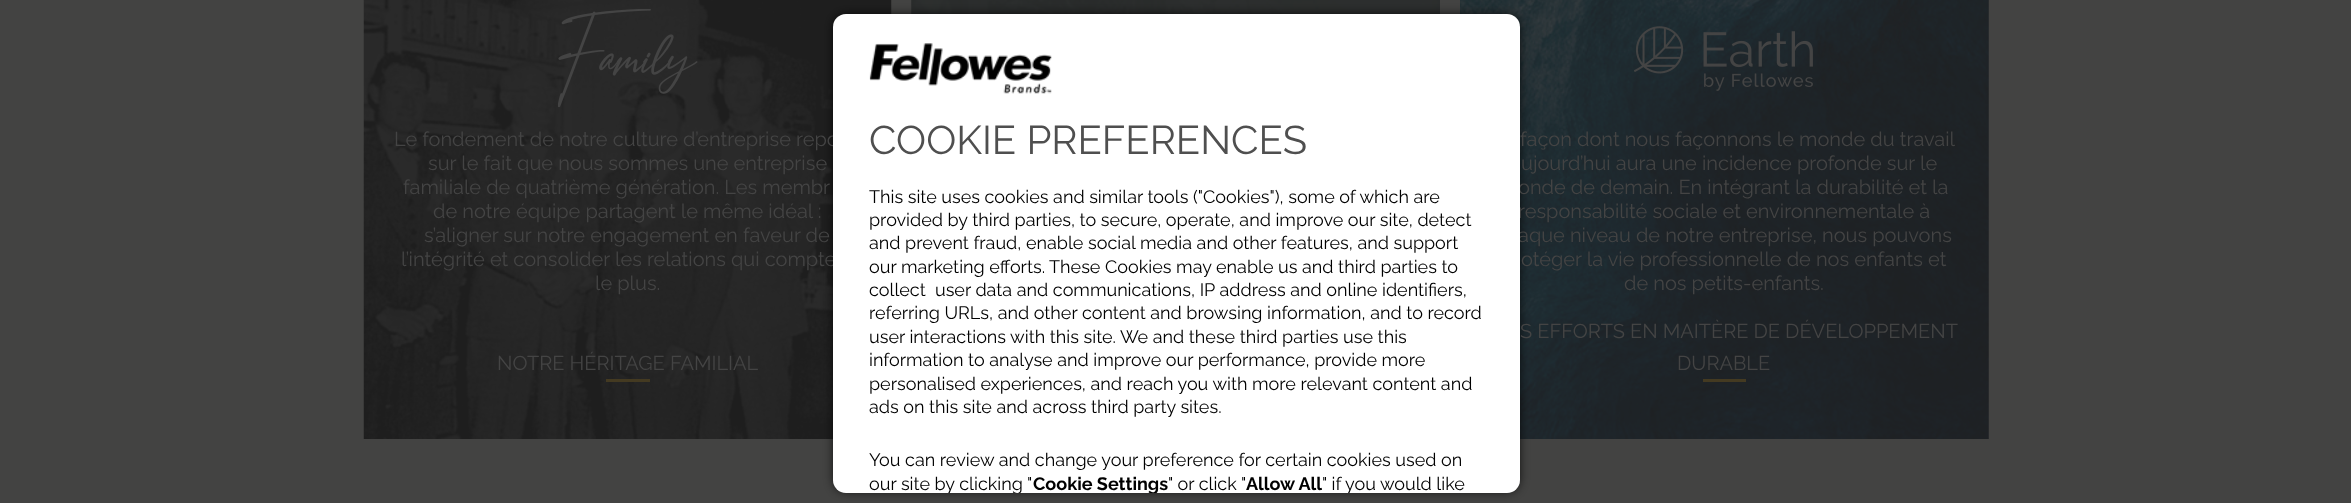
<svg xmlns="http://www.w3.org/2000/svg" width="2351" height="503" viewBox="0 0 2351 503">
  <defs>
    <filter id="blur1" x="-50%" y="-200%" width="200%" height="500%"><feGaussianBlur stdDeviation="6"/></filter>
    <clipPath id="clip1"><rect x="833" y="14" width="687" height="479" rx="13"/></clipPath>
  </defs>
  <rect width="100%" height="100%" fill="#434342"/>
  <image x="911" y="0" width="529" height="14" href="img2.png"/>
  <image x="363" y="0" width="529" height="439" href="img3.png"/>
  <image x="1460" y="0" width="529" height="439" href="img5.png"/>
  <rect x="835" y="16" width="683" height="474" rx="10" fill="#000000" filter="url(#blur1)"/>
  <text x="394" y="146" font-family="Raleway" font-size="20" fill="#444444">Le fondement de notre culture d’entreprise repo</text>
  <text x="401" y="266" font-family="Raleway" font-size="20" fill="#444444">l’intégrité et consolider les relations qui compte</text>
  <text x="1518" y="194" font-family="Raleway" font-size="20" fill="#444444">onde de demain. En intégrant la durabilité et la</text>
  <text x="1518" y="218" font-family="Raleway" font-size="20" fill="#444444">responsabilité sociale et environnementale à</text>
  <text x="1518" y="242" font-family="Raleway" font-size="20" fill="#444444">aque niveau de notre entreprise, nous pouvons</text>
  <rect x="833" y="14" width="687" height="479" rx="13" fill="#ffffff"/>
  <image x="869" y="43" width="183" height="51" href="img1.png"/>
  <text x="869" y="154" font-family="Raleway" font-size="40" fill="#4f4f4f">COOKIE PREFERENCES</text>
  <text x="869" y="203" font-family="Raleway" font-size="18" fill="#000000">This site uses cookies and similar tools ("Cookies"), some of which are</text>
  <text x="869" y="226" font-family="Raleway" font-size="18" fill="#000000">provided by third parties, to secure, operate, and improve our site, detect</text>
  <text x="869" y="249" font-family="Raleway" font-size="18" fill="#000000">and prevent fraud, enable social media and other features, and support</text>
  <text x="869" y="273" font-family="Raleway" font-size="18" fill="#000000">our marketing efforts. These Cookies may enable us and third parties to</text>
  <text x="869" y="296" font-family="Raleway" font-size="18" fill="#000000" xml:space="preserve">collect  user data and communications, IP address and online identifiers,</text>
  <text x="869" y="319" font-family="Raleway" font-size="18" fill="#000000">referring URLs, and other content and browsing information, and to record</text>
  <text x="869" y="343" font-family="Raleway" font-size="18" fill="#000000">user interactions with this site. We and these third parties use this</text>
  <text x="869" y="366" font-family="Raleway" font-size="18" fill="#000000">information to analyse and improve our performance, provide more</text>
  <text x="869" y="390" font-family="Raleway" font-size="18" fill="#000000">personalised experiences, and reach you with more relevant content and</text>
  <text x="869" y="413" font-family="Raleway" font-size="18" fill="#000000">ads on this site and across third party sites.</text>
  <text x="869" y="466" font-family="Raleway" font-size="18" fill="#000000">You can review and change your preference for certain cookies used on</text>
  <g clip-path="url(#clip1)">
    <text x="869" y="490" font-family="Raleway" font-size="18" fill="#000000">our site by clicking "</text>
    <text x="1033" y="490" font-family="Raleway" font-size="18" font-weight="bold" fill="#000000">Cookie Settings</text>
  </g>
  <text x="1168" y="490" font-family="Raleway" font-size="18" fill="#000000">" or click "</text>
  <text x="1246" y="490" font-family="Raleway" font-size="18" font-weight="bold" fill="#000000">Allow All</text>
  <g clip-path="url(#clip1)">
    <text x="1322" y="490" font-family="Raleway" font-size="18" fill="#000000">" if you would like</text>
  </g>
  <image x="558" y="9" width="140" height="99" href="img4.png"/>
  <text x="428" y="170" font-family="Raleway" font-size="20" fill="#444444">sur le fait que nous sommes une entreprise</text>
  <text x="403" y="194" font-family="Raleway" font-size="20" fill="#444444">familiale de quatrième génération. Les membr</text>
  <text x="433" y="218" font-family="Raleway" font-size="20" fill="#444444">de notre équipe partagent le même idéal :</text>
  <text x="424" y="242" font-family="Raleway" font-size="20" fill="#444444">s’aligner sur notre engagement en faveur de</text>
  <text x="595" y="290" font-family="Raleway" font-size="20" fill="#444444">le plus.</text>
  <text x="497" y="370" font-family="Raleway" font-size="20" fill="#444444">NOTRE HÉRITAGE FAMILIAL</text>
  <rect x="606" y="379" width="44" height="3" fill="#443a21"/>
  <image x="1634" y="26" width="179" height="65" href="img6.png"/>
  <text x="1520" y="146" font-family="Raleway" font-size="20" fill="#444444">façon dont nous façonnons le monde du travail</text>
  <text x="1521" y="170" font-family="Raleway" font-size="20" fill="#444444">ujourd’hui aura une incidence profonde sur le</text>
  <text x="1521" y="266" font-family="Raleway" font-size="20" fill="#444444">otéger la vie professionnelle de nos enfants et</text>
  <text x="1624" y="290" font-family="Raleway" font-size="20" fill="#444444">de nos petits-enfants.</text>
  <text x="1520" y="338" font-family="Raleway" font-size="20" fill="#444444">S EFFORTS EN MAITÈRE DE DÉVELOPPEMENT</text>
  <text x="1677" y="370" font-family="Raleway" font-size="20" fill="#444444">DURABLE</text>
  <rect x="1703" y="379" width="43" height="3" fill="#443a21"/>
</svg>
